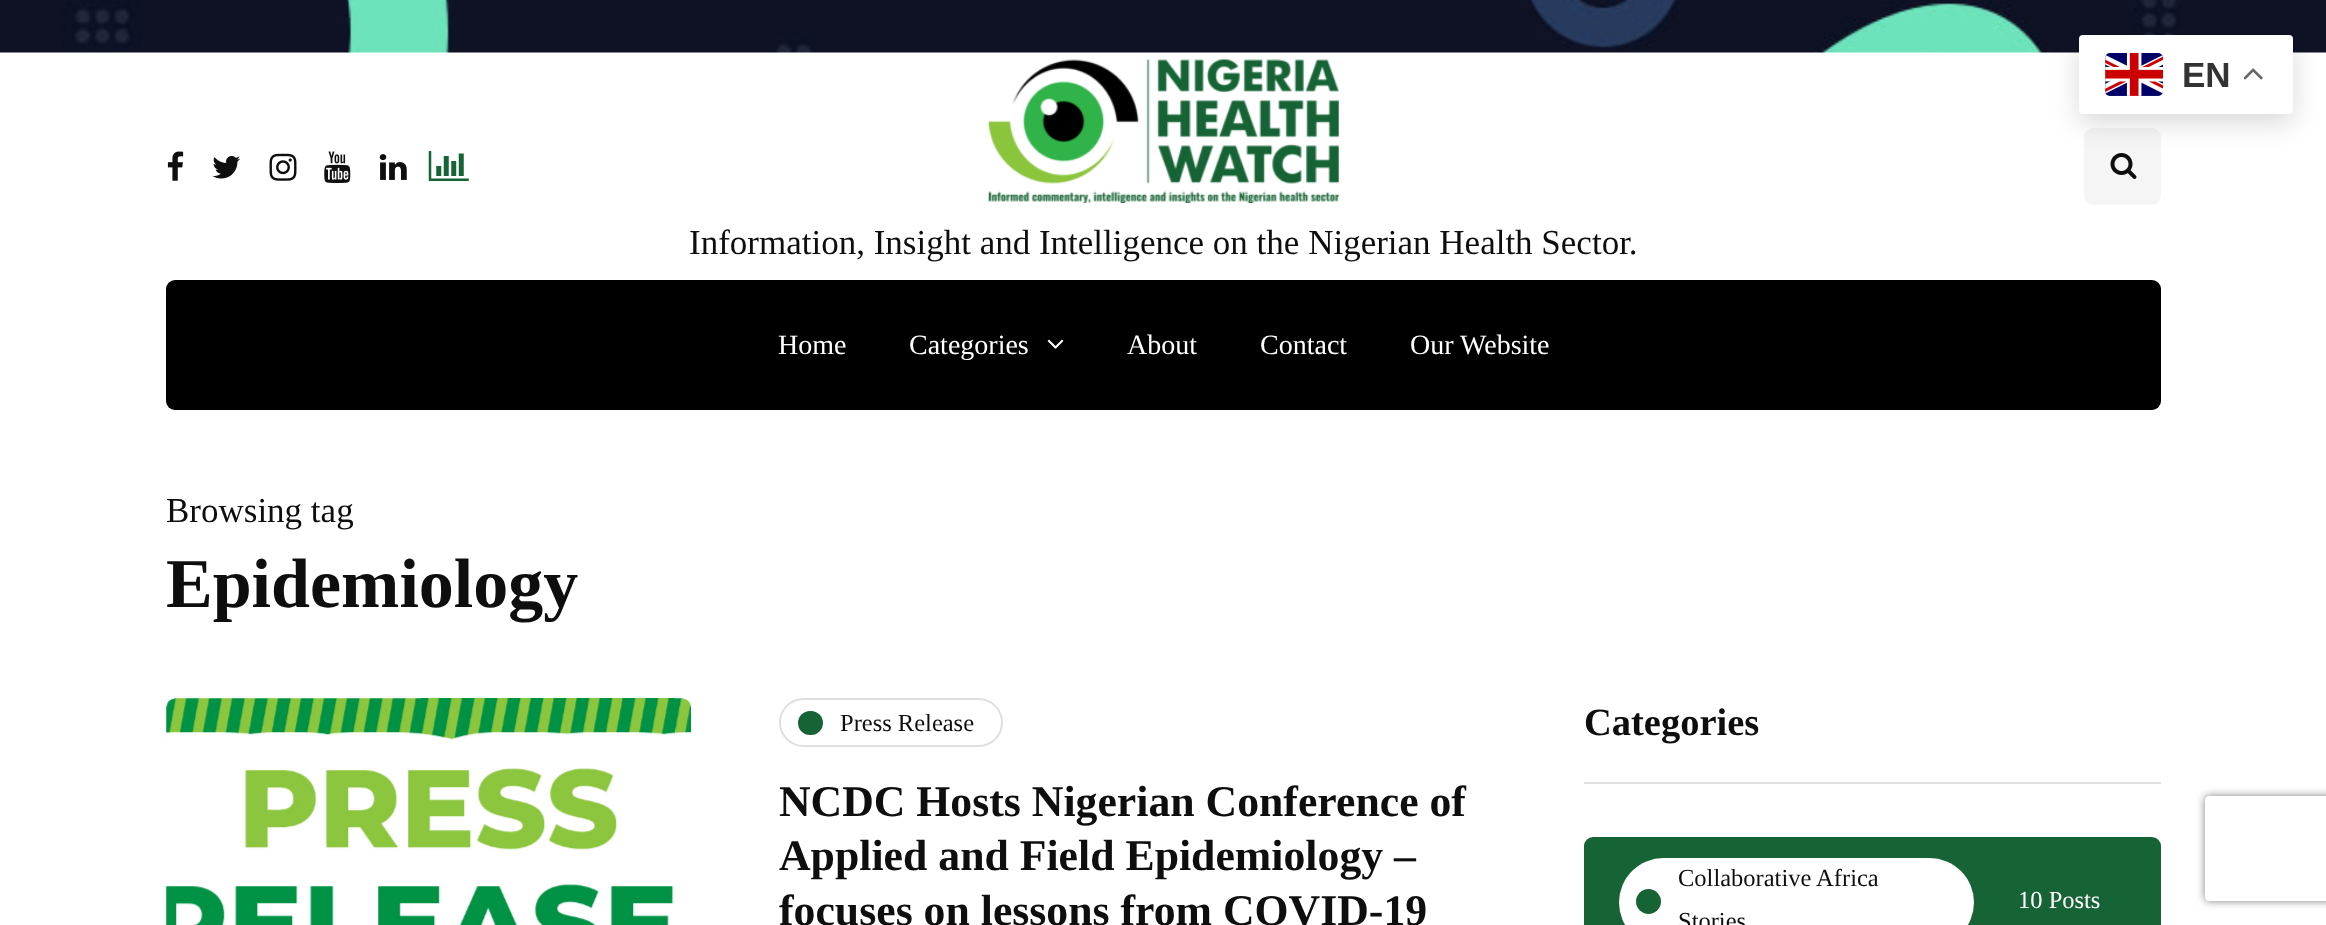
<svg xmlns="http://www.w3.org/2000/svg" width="2326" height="925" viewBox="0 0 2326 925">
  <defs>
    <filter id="blur1" x="-50%" y="-200%" width="200%" height="500%"><feGaussianBlur stdDeviation="13"/></filter>
    <clipPath id="clip1"><path d="M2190 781H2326V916H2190ZM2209 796H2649C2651 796 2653 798 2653 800V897C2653 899 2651 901 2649 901H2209C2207 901 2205 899 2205 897V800C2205 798 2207 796 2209 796Z" clip-rule="evenodd"/></clipPath>
    <filter id="blur2" x="-50%" y="-200%" width="200%" height="500%"><feGaussianBlur stdDeviation="4.5"/></filter>
  </defs>
  <rect width="100%" height="100%" fill="#ffffff"/>
  <image x="0" y="0" width="2326" height="53" href="img1.png"/>
  <rect x="2084" y="128" width="77" height="77" rx="9" fill="#f5f5f5"/>
  <image x="2110" y="153" width="27" height="26" href="img10.png"/>
  <rect x="2079" y="44" width="214" height="79" rx="4" fill="#000000" fill-opacity="0.15" filter="url(#blur1)"/>
  <rect x="2079" y="35" width="214" height="79" rx="4" fill="#ffffff"/>
  <image x="2105" y="53" width="58" height="43" href="img2.png"/>
  <text x="2182" y="87" font-family="Liberation Sans" font-size="35" font-weight="bold" fill="#333333">EN</text>
  <image x="2244" y="68" width="19" height="12" href="img3.png"/>
  <image x="167" y="151" width="17" height="30" href="img4.png"/>
  <image x="212" y="156" width="29" height="23" href="img5.png"/>
  <image x="269" y="153" width="28" height="28" href="img6.png"/>
  <image x="324" y="151" width="27" height="32" href="img7.png"/>
  <image x="379" y="154" width="28" height="26" href="img8.png"/>
  <image x="428" y="151" width="41" height="30" href="img9.png"/>
  <image x="988" y="59" width="351" height="144" href="img11.png"/>
  <text x="689" y="254" font-family="Liberation Serif" font-size="35" fill="#0f0e0e">Information, Insight and Intelligence on the Nigerian Health Sector.</text>
  <rect x="166" y="280" width="1995" height="130" rx="9" fill="#000000"/>
  <text x="778" y="354" font-family="Liberation Serif" font-size="28" fill="#ffffff">Home</text>
  <text x="909" y="354" font-family="Liberation Serif" font-size="28" fill="#ffffff">Categories</text>
  <image x="1047" y="339" width="17" height="10" href="img12.png"/>
  <text x="1127" y="354" font-family="Liberation Serif" font-size="28" fill="#ffffff">About</text>
  <text x="1260" y="354" font-family="Liberation Serif" font-size="28" fill="#ffffff">Contact</text>
  <text x="1410" y="354" font-family="Liberation Serif" font-size="28" fill="#ffffff">Our Website</text>
  <text x="166" y="522" font-family="Liberation Serif" font-size="35" fill="#0f0e0e">Browsing tag</text>
  <text x="166" y="607" font-family="Liberation Serif" font-size="70" font-weight="bold" fill="#0f0e0e">Epidemiology</text>
  <rect x="166" y="698" width="525" height="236" rx="9" fill="#f5f5f5"/>
  <image x="166" y="698" width="525" height="227" href="img13.png"/>
  <rect x="780" y="699" width="222" height="47" rx="23.5" fill="none" stroke="#e0dede" stroke-width="2"/>
  <rect x="798" y="711" width="25" height="24" rx="12" fill="#166335"/>
  <text x="840" y="731" font-family="Liberation Serif" font-size="24.5" fill="#0f0e0e">Press Release</text>
  <text x="779" y="816" font-family="Liberation Serif" font-size="43.75" font-weight="bold" fill="#0f0e0e">NCDC Hosts Nigerian Conference of</text>
  <text x="779" y="870" font-family="Liberation Serif" font-size="43.75" font-weight="bold" fill="#0f0e0e">Applied and Field Epidemiology –</text>
  <text x="779" y="925" font-family="Liberation Serif" font-size="43.75" font-weight="bold" fill="#0f0e0e">focuses on lessons from COVID-19</text>
  <rect x="1584" y="782" width="577" height="2" fill="#e0dede"/>
  <text x="1584" y="735" font-family="Liberation Serif" font-size="38.5" font-weight="bold" fill="#0f0e0e">Categories</text>
  <rect x="1584" y="837" width="577" height="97" rx="9" fill="#166335"/>
  <rect x="1619" y="858" width="355" height="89" rx="44.5" fill="#ffffff"/>
  <circle cx="1648.5" cy="901.5" r="12.5" fill="#166335"/>
  <text x="1678" y="886" font-family="Liberation Serif" font-size="24.5" fill="#0f0e0e">Collaborative Africa</text>
  <text x="1678" y="929" font-family="Liberation Serif" font-size="24.5" fill="#0f0e0e">Stories</text>
  <text x="2018" y="908" font-family="Liberation Serif" font-size="24.5" fill="#ffffff">10 Posts</text>
  <g clip-path="url(#clip1)">
    <rect x="2205" y="796" width="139" height="105" rx="4" fill="#808080" filter="url(#blur2)"/>
  </g>
</svg>
